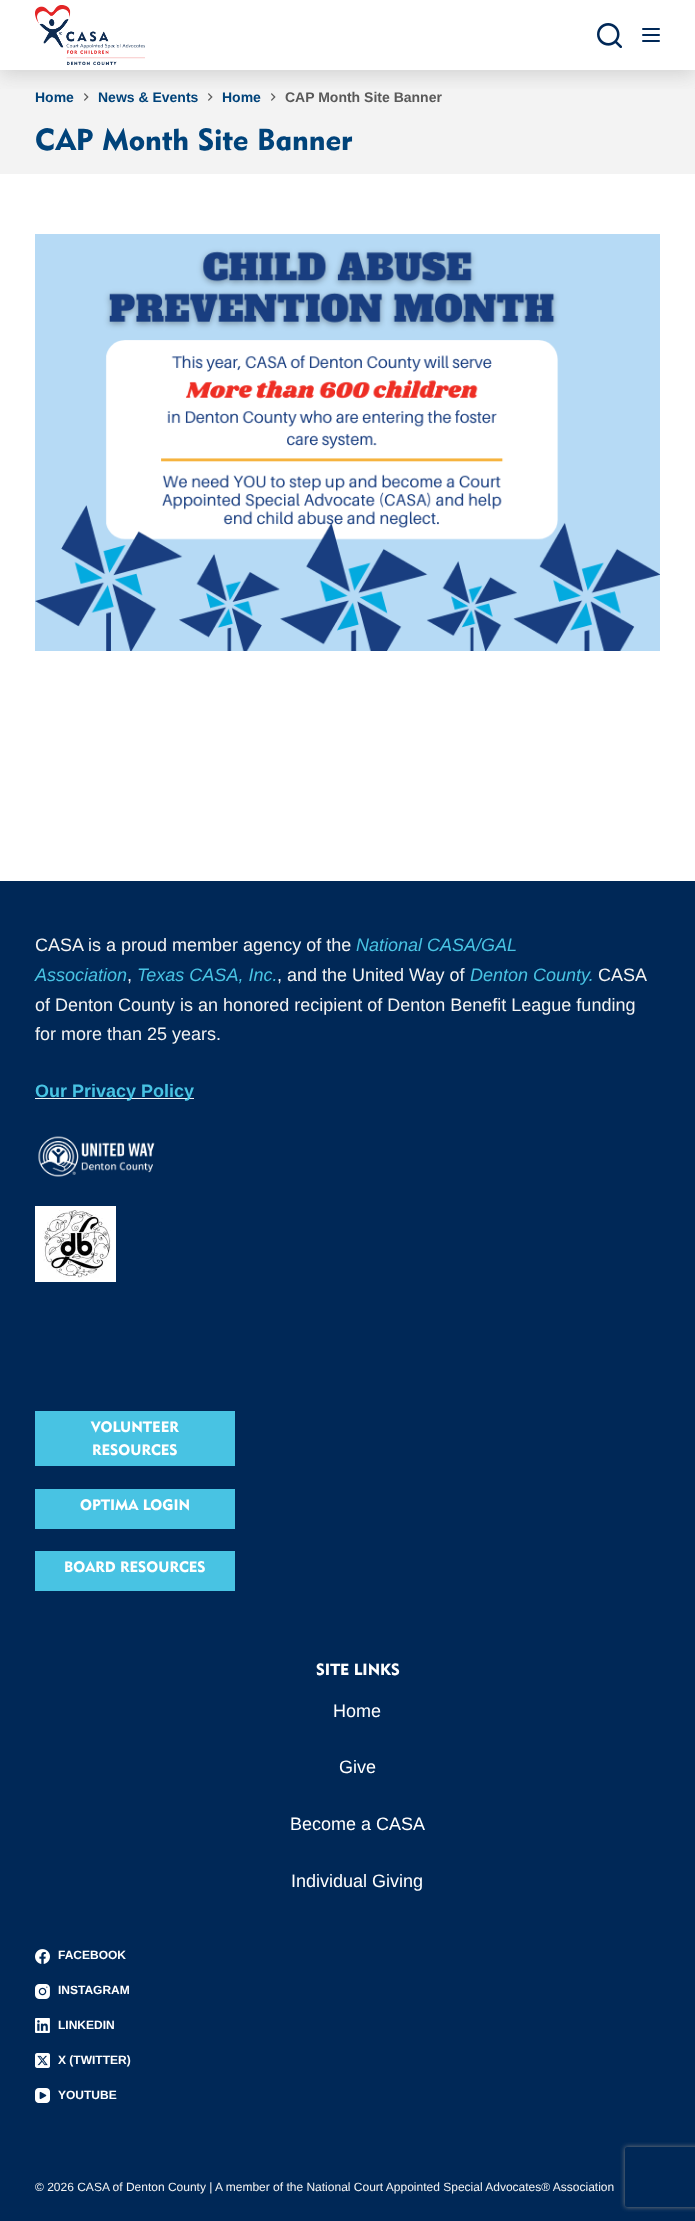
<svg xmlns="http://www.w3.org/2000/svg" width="695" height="2221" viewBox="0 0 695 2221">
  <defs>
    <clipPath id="clip1"><rect x="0" y="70" width="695" height="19"/></clipPath>
    <filter id="blur1" x="-50%" y="-200%" width="200%" height="500%"><feGaussianBlur stdDeviation="10"/></filter>
    <clipPath id="clip2"><path d="M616 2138H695V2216H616ZM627 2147H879C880 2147 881 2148 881 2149V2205C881 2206 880 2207 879 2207H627C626 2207 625 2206 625 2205V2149C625 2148 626 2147 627 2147Z" clip-rule="evenodd"/></clipPath>
    <filter id="blur2" x="-50%" y="-200%" width="200%" height="500%"><feGaussianBlur stdDeviation="2.5"/></filter>
  </defs>
  <rect width="100%" height="100%" fill="#ffffff"/>
  <rect x="0" y="70" width="695" height="104" fill="#f3f3f3"/>
  <image x="84" y="93" width="5" height="8" href="img3.png"/>
  <image x="208" y="93" width="5" height="8" href="img3.png"/>
  <image x="271" y="93" width="5" height="8" href="img3.png"/>
  <g clip-path="url(#clip1)">
    <rect x="0" y="4" width="695" height="70" fill="#787878" fill-opacity="0.29" filter="url(#blur1)"/>
  </g>
  <image x="35" y="5" width="110" height="60" href="img1.png"/>
  <image x="597" y="23" width="25" height="25" href="img2.png"/>
  <rect x="642" y="28" width="18" height="2" rx="1" fill="#002857"/>
  <rect x="642" y="34" width="18" height="2" rx="1" fill="#002857"/>
  <rect x="642" y="40" width="18" height="2" rx="1" fill="#002857"/>
  <text x="35" y="102" font-family="Liberation Sans" font-size="14" font-weight="bold" fill="#00437a">Home</text>
  <text x="98" y="102" font-family="Liberation Sans" font-size="14" font-weight="bold" fill="#00437a">News &amp; Events</text>
  <text x="222" y="102" font-family="Liberation Sans" font-size="14" font-weight="bold" fill="#00437a">Home</text>
  <text x="285" y="102" font-family="Liberation Sans" font-size="14" font-weight="bold" fill="#595959">CAP Month Site Banner</text>
  <text x="35" y="150" font-family="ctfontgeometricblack" font-size="30" font-weight="900" fill="#00437a">CAP Month Site Banner</text>
  <image x="35" y="234" width="625" height="417" href="img4.png"/>
  <rect x="0" y="881" width="695" height="1340" fill="#002857"/>
  <text x="35" y="951" font-family="Liberation Sans" font-size="18" fill="#f3f3f3">CASA is a proud member agency of the</text>
  <text x="356" y="951" font-family="Liberation Sans" font-size="18" font-style="italic" fill="#48c3e3">National CASA/GAL</text>
  <text x="35" y="981" font-family="Liberation Sans" font-size="18" font-style="italic" fill="#48c3e3">Association</text>
  <text x="127" y="981" font-family="Liberation Sans" font-size="18" fill="#f3f3f3">,</text>
  <text x="137" y="981" font-family="Liberation Sans" font-size="18" font-style="italic" fill="#48c3e3">Texas CASA, Inc.</text>
  <text x="277" y="981" font-family="Liberation Sans" font-size="18" fill="#f3f3f3">, and the United Way of</text>
  <text x="470" y="981" font-family="Liberation Sans" font-size="18" font-style="italic" fill="#48c3e3">Denton County.</text>
  <text x="598" y="981" font-family="Liberation Sans" font-size="18" fill="#f3f3f3">CASA</text>
  <text x="35" y="1011" font-family="Liberation Sans" font-size="18" fill="#f3f3f3">of Denton County is an honored recipient of Denton Benefit League funding</text>
  <text x="35" y="1040" font-family="Liberation Sans" font-size="18" fill="#f3f3f3">for more than 25 years.</text>
  <rect x="35" y="1098" width="159" height="1" fill="#f3f3f3"/>
  <text x="35" y="1097" font-family="Liberation Sans" font-size="18" font-weight="bold" fill="#48c3e3">Our Privacy Policy</text>
  <image x="38" y="1136" width="117" height="41" href="img5.png"/>
  <image x="35" y="1206" width="81" height="76" href="img6.png"/>
  <rect x="35" y="1411" width="200" height="55" fill="#48c3e3"/>
  <text x="91" y="1432" font-family="ctfontgeometricblack" font-size="15" font-weight="900" fill="#ffffff">VOLUNTEER</text>
  <text x="92" y="1455" font-family="ctfontgeometricblack" font-size="15" font-weight="900" fill="#ffffff">RESOURCES</text>
  <rect x="35" y="1489" width="200" height="40" fill="#48c3e3"/>
  <text x="80" y="1510" font-family="ctfontgeometricblack" font-size="15" font-weight="900" fill="#ffffff">OPTIMA LOGIN</text>
  <rect x="35" y="1551" width="200" height="40" fill="#48c3e3"/>
  <text x="64" y="1572" font-family="ctfontgeometricblack" font-size="15" font-weight="900" fill="#ffffff">BOARD RESOURCES</text>
  <text x="316" y="1675" font-family="ctfontgeometricblack" font-size="16" font-weight="900" fill="#ffffff">SITE LINKS</text>
  <text x="333" y="1717" font-family="Liberation Sans" font-size="18" fill="#ffffff">Home</text>
  <text x="339" y="1773" font-family="Liberation Sans" font-size="18" fill="#ffffff">Give</text>
  <text x="290" y="1830" font-family="Liberation Sans" font-size="18" fill="#ffffff">Become a CASA</text>
  <text x="291" y="1887" font-family="Liberation Sans" font-size="18" fill="#ffffff">Individual Giving</text>
  <image x="35" y="1949" width="15" height="15" href="img7.png"/>
  <text x="58" y="1959" font-family="Liberation Sans" font-size="12" font-weight="bold" fill="#ffffff">FACEBOOK</text>
  <image x="35" y="1984" width="15" height="15" href="img8.png"/>
  <text x="58" y="1994" font-family="Liberation Sans" font-size="12" font-weight="bold" fill="#ffffff">INSTAGRAM</text>
  <image x="35" y="2018" width="15" height="15" href="img9.png"/>
  <text x="58" y="2029" font-family="Liberation Sans" font-size="12" font-weight="bold" fill="#ffffff">LINKEDIN</text>
  <image x="35" y="2053" width="15" height="15" href="img10.png"/>
  <text x="58" y="2064" font-family="Liberation Sans" font-size="12" font-weight="bold" fill="#ffffff">X (TWITTER)</text>
  <image x="35" y="2088" width="15" height="15" href="img11.png"/>
  <text x="58" y="2099" font-family="Liberation Sans" font-size="12" font-weight="bold" fill="#ffffff">YOUTUBE</text>
  <text x="35" y="2191" font-family="Liberation Sans" font-size="12" fill="#f3f3f3">© 2026 CASA of Denton County | A member of the National Court Appointed Special Advocates® Association</text>
  <g clip-path="url(#clip2)">
    <rect x="625" y="2147" width="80" height="60" rx="2" fill="#808080" filter="url(#blur2)"/>
  </g>
</svg>
